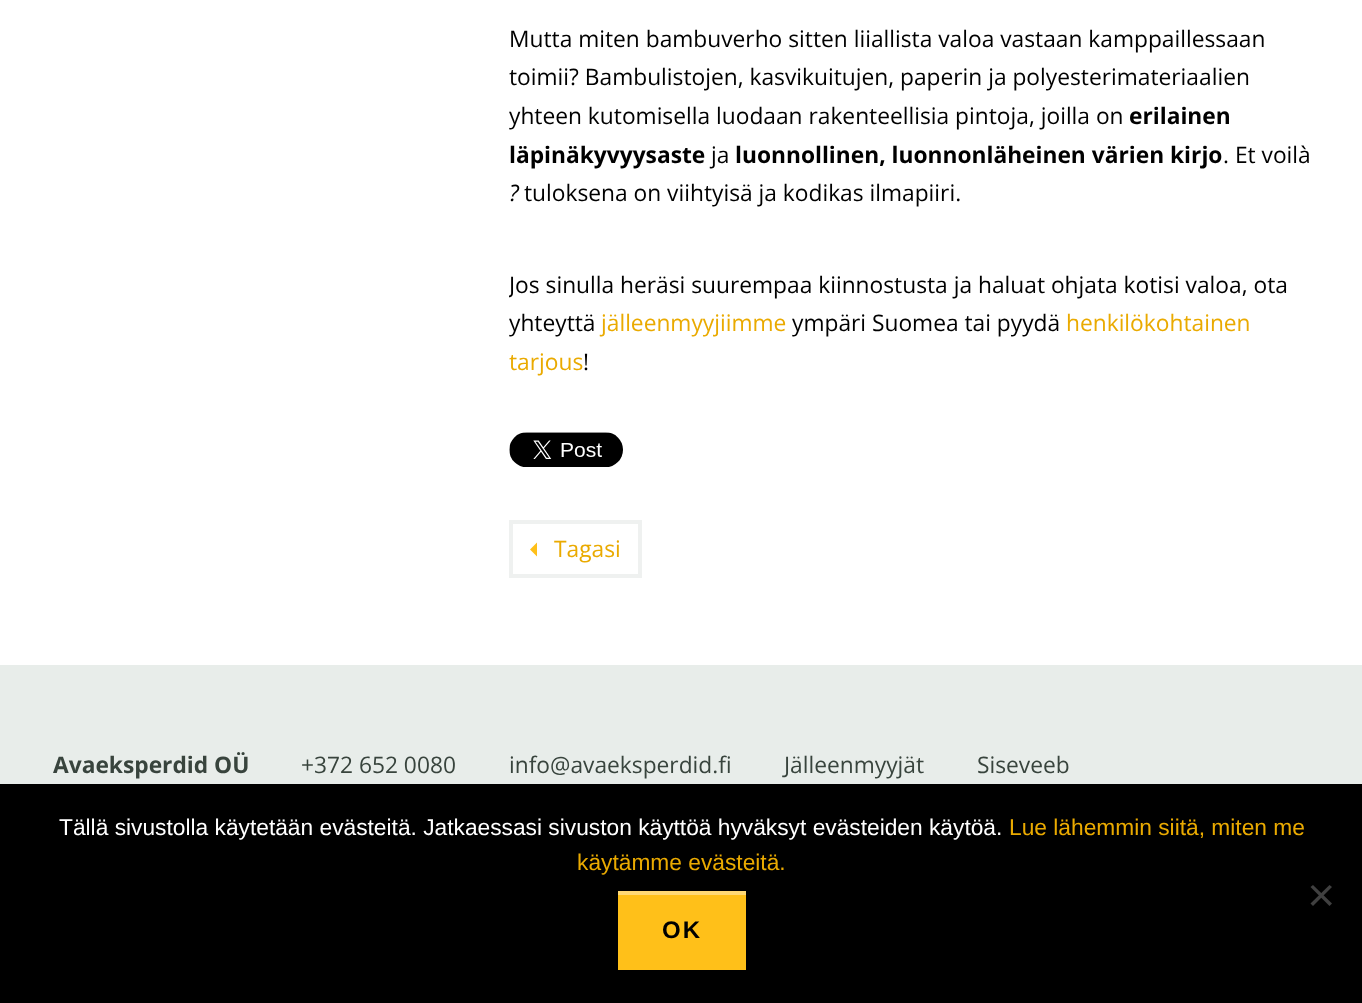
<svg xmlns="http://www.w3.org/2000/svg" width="1362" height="1003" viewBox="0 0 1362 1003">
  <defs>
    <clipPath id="clip1"><rect x="509" y="0" width="802" height="578"/></clipPath>
  </defs>
  <rect width="100%" height="100%" fill="#ffffff"/>
  <text x="509" y="47" font-family="Open Sans" font-size="22.75" fill="#000000">Mutta miten bambuverho sitten liiallista valoa vastaan kamppaillessaan</text>
  <text x="509" y="85" font-family="Open Sans" font-size="22.75" fill="#000000">toimii? Bambulistojen, kasvikuitujen, paperin ja polyesterimateriaalien</text>
  <g clip-path="url(#clip1)">
    <text x="509" y="124" font-family="Open Sans" font-size="22.75" fill="#000000">yhteen kutomisella luodaan rakenteellisia pintoja, joilla on</text>
  </g>
  <text x="1129" y="124" font-family="Open Sans" font-size="22.75" font-weight="bold" fill="#000000">erilainen</text>
  <text x="509" y="163" font-family="Open Sans" font-size="22.75" font-weight="bold" fill="#000000">läpinäkyvyysaste</text>
  <text x="711" y="163" font-family="Open Sans" font-size="22.75" fill="#000000">ja</text>
  <text x="735" y="163" font-family="Open Sans" font-size="22.75" font-weight="bold" fill="#000000">luonnollinen, luonnonläheinen värien kirjo</text>
  <text x="1223" y="163" font-family="Open Sans" font-size="22.75" fill="#000000">. Et voilà</text>
  <text x="509" y="201" font-family="Open Sans" font-size="22.75" font-style="italic" fill="#000000">?</text>
  <text x="524" y="201" font-family="Open Sans" font-size="22.75" fill="#000000">tuloksena on viihtyisä ja kodikas ilmapiiri.</text>
  <g clip-path="url(#clip1)">
    <text x="509" y="293" font-family="Open Sans" font-size="22.75" fill="#000000">Jos sinulla heräsi suurempaa kiinnostusta ja haluat ohjata kotisi valoa, ota</text>
    <text x="509" y="331" font-family="Open Sans" font-size="22.75" fill="#000000">yhteyttä</text>
  </g>
  <text x="601" y="331" font-family="Open Sans" font-size="22.75" fill="#eaaa00">jälleenmyyjiimme</text>
  <text x="792" y="331" font-family="Open Sans" font-size="22.75" fill="#000000">ympäri Suomea tai pyydä</text>
  <text x="1066" y="331" font-family="Open Sans" font-size="22.75" fill="#eaaa00">henkilökohtainen</text>
  <text x="509" y="370" font-family="Open Sans" font-size="22.75" fill="#eaaa00">tarjous</text>
  <text x="583" y="370" font-family="Open Sans" font-size="22.75" fill="#000000">!</text>
  <image x="509" y="432" width="114" height="35" href="img1.png"/>
  <rect x="511" y="522" width="129" height="54" fill="none" stroke="#eff1f0" stroke-width="4"/>
  <path d="M537 542.5V556.5L530 549.5Z" fill="#ffc019"/>
  <text x="554" y="557" font-family="Open Sans" font-size="22.75" fill="#eaaa00">Tagasi</text>
  <rect x="0" y="665" width="1362" height="119" fill="#e8edea"/>
  <text x="53" y="773" font-family="Open Sans" font-size="22.75" font-weight="bold" fill="#38443d">Avaeksperdid OÜ</text>
  <text x="301" y="773" font-family="Open Sans" font-size="22.75" fill="#38443d">+372 652 0080</text>
  <text x="509" y="773" font-family="Open Sans" font-size="22.75" fill="#38443d">info@avaeksperdid.fi</text>
  <text x="784" y="773" font-family="Open Sans" font-size="22.75" fill="#38443d">Jälleenmyyjät</text>
  <text x="977" y="773" font-family="Open Sans" font-size="22.75" fill="#38443d">Siseveeb</text>
  <rect x="0" y="784" width="1362" height="219" fill="#000000"/>
  <text x="59" y="835" font-family="Liberation Sans" font-size="22.75" fill="#ffffff">Tällä sivustolla käytetään evästeitä. Jatkaessasi sivuston käyttöä hyväksyt evästeiden käytöä.</text>
  <text x="1009" y="835" font-family="Liberation Sans" font-size="22.75" fill="#eaaa00">Lue lähemmin siitä, miten me</text>
  <text x="577" y="870" font-family="Liberation Sans" font-size="22.75" fill="#eaaa00">käytämme evästeitä.</text>
  <path d="M1329.5 885L1332 887L1313 906L1310.5 903.5Z" fill="#404040"/>
  <path d="M1310.5 887L1313 885L1332 903.5L1329.5 906Z" fill="#404040"/>
  <rect x="618" y="895" width="128" height="75" fill="#ffc019"/>
  <rect x="618" y="891" width="128" height="4" fill="#ffd975"/>
  <text x="662" y="938" font-family="Liberation Sans" font-size="24" font-weight="bold" letter-spacing="2" fill="#000000">OK</text>
</svg>
